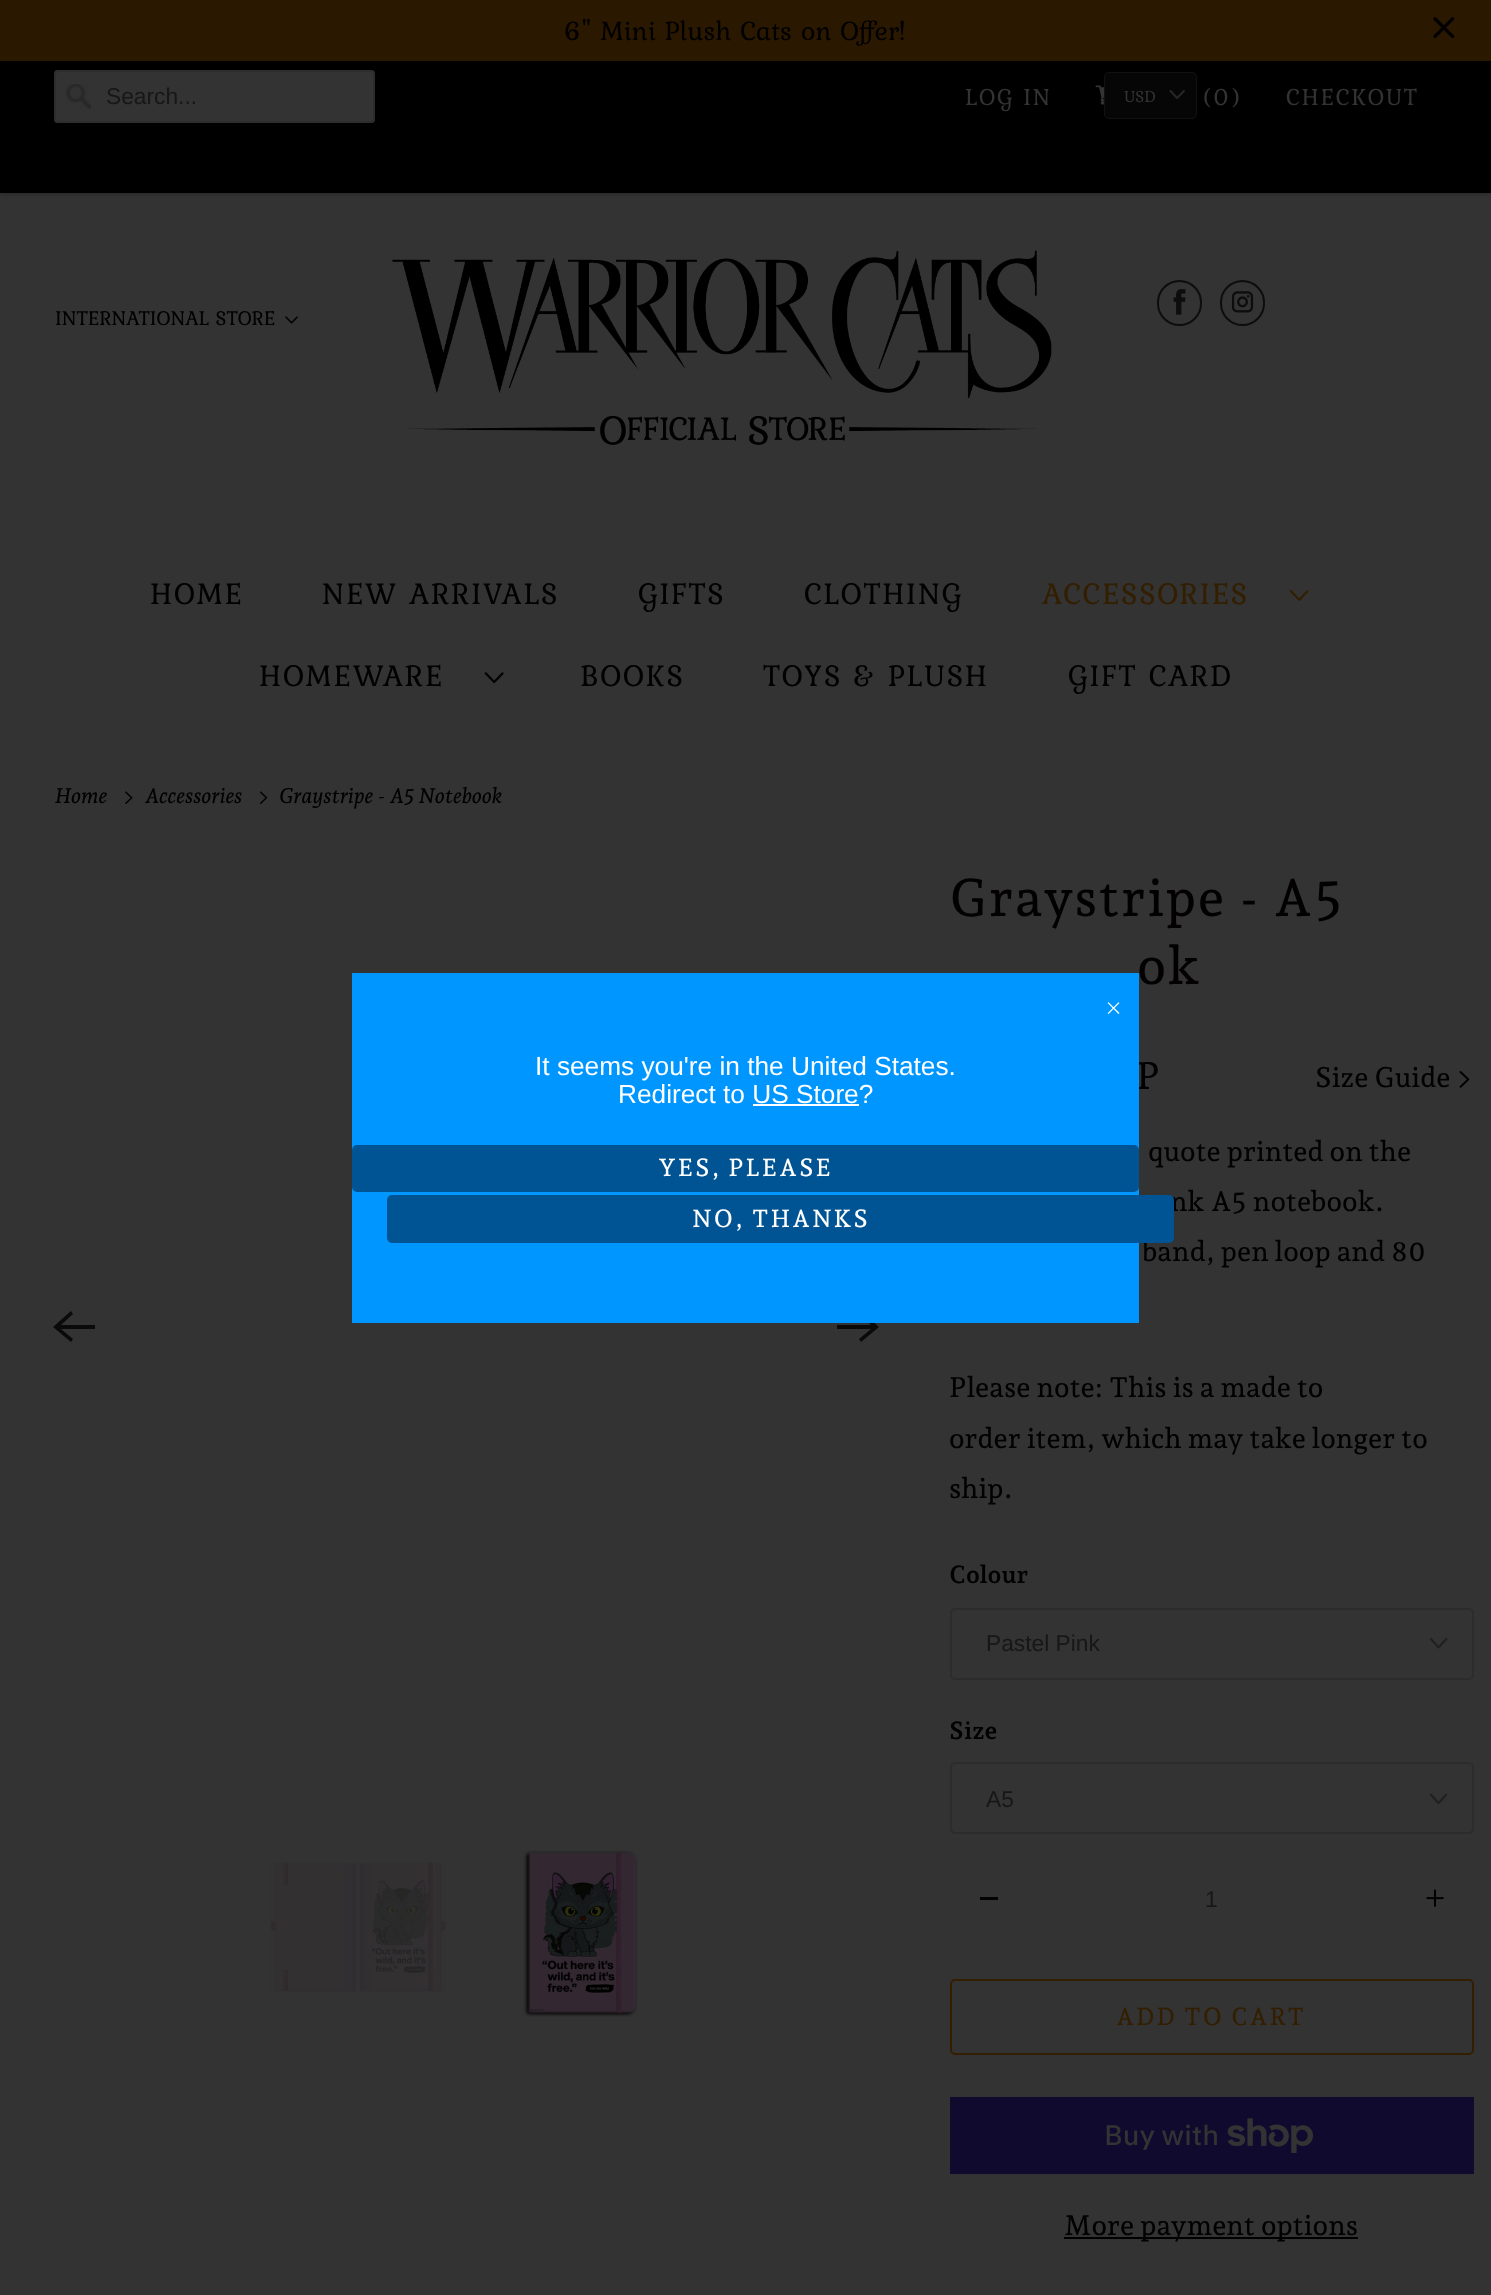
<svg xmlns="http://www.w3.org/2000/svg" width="1491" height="2295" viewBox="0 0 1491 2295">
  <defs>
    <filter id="blur1" x="-50%" y="-200%" width="200%" height="500%"><feGaussianBlur stdDeviation="2.5"/></filter>
  </defs>
  <rect width="100%" height="100%" fill="#333333"/>
  <rect x="0" y="0" width="1491" height="61" fill="#2a1900"/>
  <text x="564" y="40" font-family="Kurale" font-size="28" fill="#020000">6" Mini Plush Cats on Offer!</text>
  <image x="1433" y="17" width="22" height="22" href="img1.png"/>
  <rect x="0" y="63" width="1491" height="131" fill="#000000" fill-opacity="0.25" filter="url(#blur1)"/>
  <rect x="0" y="61" width="1491" height="132" fill="#000000"/>
  <rect x="54" y="70" width="321" height="53" rx="4" fill="#333333"/>
  <image x="66" y="84" width="25" height="25" href="img2.png"/>
  <rect x="55" y="71" width="319" height="51" rx="3" fill="none" stroke="#2d2d2d" stroke-width="2"/>
  <text x="106" y="104" font-family="Liberation Sans" font-size="22.75" fill="#171717">Search...</text>
  <text x="965" y="105" font-family="Kurale" font-size="24.5" letter-spacing="1.75" fill="#333333">LOG IN</text>
  <image x="1095" y="85" width="9" height="20" href="img3.png"/>
  <text x="1203" y="105" font-family="Kurale" font-size="24.5" letter-spacing="1.75" fill="#333333">(0)</text>
  <text x="1286" y="105" font-family="Kurale" font-size="24.5" letter-spacing="1.75" fill="#333333">CHECKOUT</text>
  <rect x="1104" y="72" width="93" height="47" rx="5" fill="#060606"/>
  <rect x="1104.5" y="72.5" width="92" height="46" rx="4.5" fill="none" stroke="#292929" stroke-opacity="0.36"/>
  <text x="1124" y="102" font-family="Kurale" font-size="17" fill="#333333">USD</text>
  <path d="M1170.5 91L1177 98L1184 91" fill="none" stroke="#252525" stroke-width="2.2" stroke-linecap="round" stroke-linejoin="round"/>
  <text x="55" y="325" font-family="Kurale" font-size="21" fill="#020000">INTERNATIONAL STORE</text>
  <image x="285" y="316" width="13" height="8" href="img4.png"/>
  <image x="392" y="250" width="660" height="195" href="img5.png"/>
  <rect x="1158" y="281" width="43" height="44" rx="21.5" fill="none" stroke="#0d0d0d" stroke-width="2"/>
  <image x="1173" y="289" width="13" height="26" href="img6.png"/>
  <rect x="1221" y="281" width="43" height="44" rx="21.5" fill="none" stroke="#0d0d0d" stroke-width="2"/>
  <image x="1231" y="291" width="23" height="22" href="img7.png"/>
  <text x="150" y="604" font-family="Kurale" font-size="31.5" letter-spacing="1.75" fill="#020000">HOME</text>
  <text x="322" y="604" font-family="Kurale" font-size="31.5" letter-spacing="1.75" fill="#020000">NEW ARRIVALS</text>
  <text x="638" y="604" font-family="Kurale" font-size="31.5" letter-spacing="1.75" fill="#020000">GIFTS</text>
  <text x="804" y="604" font-family="Kurale" font-size="31.5" letter-spacing="1.75" fill="#020000">CLOTHING</text>
  <text x="1042" y="604" font-family="Kurale" font-size="31.5" letter-spacing="1.75" fill="#331e00">ACCESSORIES</text>
  <image x="1289" y="590" width="20" height="11" href="img8.png"/>
  <text x="259" y="686" font-family="Kurale" font-size="31.5" letter-spacing="1.75" fill="#020000">HOMEWARE</text>
  <image x="484" y="672" width="20" height="12" href="img9.png"/>
  <text x="580" y="686" font-family="Kurale" font-size="31.5" letter-spacing="1.75" fill="#020000">BOOKS</text>
  <text x="763" y="686" font-family="Kurale" font-size="31.5" letter-spacing="1.75" fill="#020000">TOYS &amp; PLUSH</text>
  <text x="1068" y="686" font-family="Kurale" font-size="31.5" letter-spacing="1.75" fill="#020000">GIFT CARD</text>
  <text x="55" y="803" font-family="Andada Pro" font-size="21" font-weight="500" font-style="italic" fill="#020000">Home</text>
  <image x="125" y="791" width="8" height="13" href="img10.png"/>
  <text x="145" y="803" font-family="Andada Pro" font-size="21" font-weight="500" font-style="italic" fill="#020000">Accessories</text>
  <image x="259" y="791" width="9" height="13" href="img11.png"/>
  <text x="279" y="803" font-family="Andada Pro" font-size="21" font-weight="500" font-style="italic" fill="#020000">Graystripe - A5 Notebook</text>
  <path d="M837 1329H871L859 1339L861 1342L879 1327L861 1311L859 1314L871 1325H837Z" fill="#0a0a0a"/>
  <text x="1136" y="1089" font-family="Andada Pro" font-size="38" font-weight="500" fill="#020000">P</text>
  <rect x="352" y="973" width="787" height="350" fill="#0096ff"/>
  <text x="1105" y="1015" font-family="Andada Pro" font-size="28" font-weight="500" fill="#ffffff">×</text>
  <text x="535" y="1075" font-family="Liberation Sans" font-size="26.25" fill="#ffffff">It seems you're in the United States.</text>
  <text x="618" y="1103" font-family="Liberation Sans" font-size="26.25" fill="#ffffff">Redirect to US Store?</text>
  <rect x="753" y="1104" width="106" height="2" fill="#ffffff"/>
  <rect x="352" y="1145" width="787" height="47" rx="5" fill="#005493"/>
  <text x="658" y="1176" font-family="Andada Pro" font-size="24.5" font-weight="500" letter-spacing="1.75" fill="#ffffff">YES, PLEASE</text>
  <text x="1170" y="1211" font-family="Andada Pro" font-size="28" font-weight="500" fill="#020000">nk A5 notebook.</text>
  <text x="1142" y="1261" font-family="Andada Pro" font-size="28" font-weight="500" fill="#020000">band, pen loop and 80</text>
  <rect x="387" y="1195" width="787" height="48" rx="5" fill="#005493"/>
  <text x="692" y="1227" font-family="Andada Pro" font-size="24.5" font-weight="500" letter-spacing="1.75" fill="#ffffff">NO, THANKS</text>
  <path d="M95 1325H61L73 1314L71 1311L53 1327L71 1342L73 1339L61 1329H95Z" fill="#0a0a0a"/>
  <image x="270" y="1862" width="176" height="130" href="img12.png"/>
  <image x="523" y="1850" width="115" height="167" href="img13.png"/>
  <text x="949" y="916" font-family="Andada Pro" font-size="52.5" font-weight="500" letter-spacing="1.75" fill="#020000">Graystripe - A5</text>
  <text x="1137" y="984" font-family="Andada Pro" font-size="52.5" font-weight="500" letter-spacing="1.75" fill="#020000">ok</text>
  <text x="1315" y="1087" font-family="Andada Pro" font-size="28" font-weight="500" fill="#020000">Size Guide</text>
  <image x="1459" y="1071" width="11" height="17" href="img14.png"/>
  <text x="1148" y="1161" font-family="Andada Pro" font-size="28" font-weight="500" fill="#020000">quote printed on the</text>
  <text x="949" y="1397" font-family="Andada Pro" font-size="28" font-weight="500" fill="#020000">Please note: This is a made to</text>
  <text x="949" y="1448" font-family="Andada Pro" font-size="28" font-weight="500" fill="#020000">order item, which may take longer to</text>
  <text x="949" y="1498" font-family="Andada Pro" font-size="28" font-weight="500" fill="#020000">ship.</text>
  <text x="949" y="1583" font-family="Andada Pro" font-size="24.5" font-weight="bold" fill="#020000">Colour</text>
  <image x="1429" y="1638" width="19" height="11" href="img15.png"/>
  <rect x="951" y="1609" width="522" height="70" rx="4" fill="none" stroke="#2b2c2c" stroke-width="2"/>
  <text x="986" y="1651" font-family="Liberation Sans" font-size="22.75" fill="#171717">Pastel Pink</text>
  <text x="949" y="1739" font-family="Andada Pro" font-size="24.5" font-weight="bold" fill="#020000">Size</text>
  <image x="1429" y="1793" width="19" height="12" href="img16.png"/>
  <rect x="951" y="1763" width="522" height="70" rx="4" fill="none" stroke="#2b2c2c" stroke-width="2"/>
  <text x="986" y="1807" font-family="Liberation Sans" font-size="22.75" fill="#171717">A5</text>
  <rect x="980" y="1897" width="18" height="3" fill="#010201"/>
  <text x="1205" y="1907" font-family="Liberation Sans" font-size="22.75" fill="#171717">1</text>
  <image x="1426" y="1889" width="18" height="18" href="img17.png"/>
  <rect x="951" y="1980" width="522" height="74" rx="4" fill="none" stroke="#331e00" stroke-width="2"/>
  <text x="1116" y="2025" font-family="Andada Pro" font-size="24.5" font-weight="500" letter-spacing="1.75" fill="#331e00">ADD TO CART</text>
  <rect x="950" y="2097" width="524" height="77" fill="#110a2f"/>
  <text x="1104" y="2145" font-family="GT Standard" font-size="28" font-weight="500" fill="#333333">Buy with</text>
  <image x="1227" y="2118" width="86" height="35" href="img18.png"/>
  <rect x="1064" y="2237" width="294" height="2" fill="#000000"/>
  <text x="1064" y="2235" font-family="Andada Pro" font-size="28" font-weight="500" fill="#020000">More payment options</text>
</svg>
